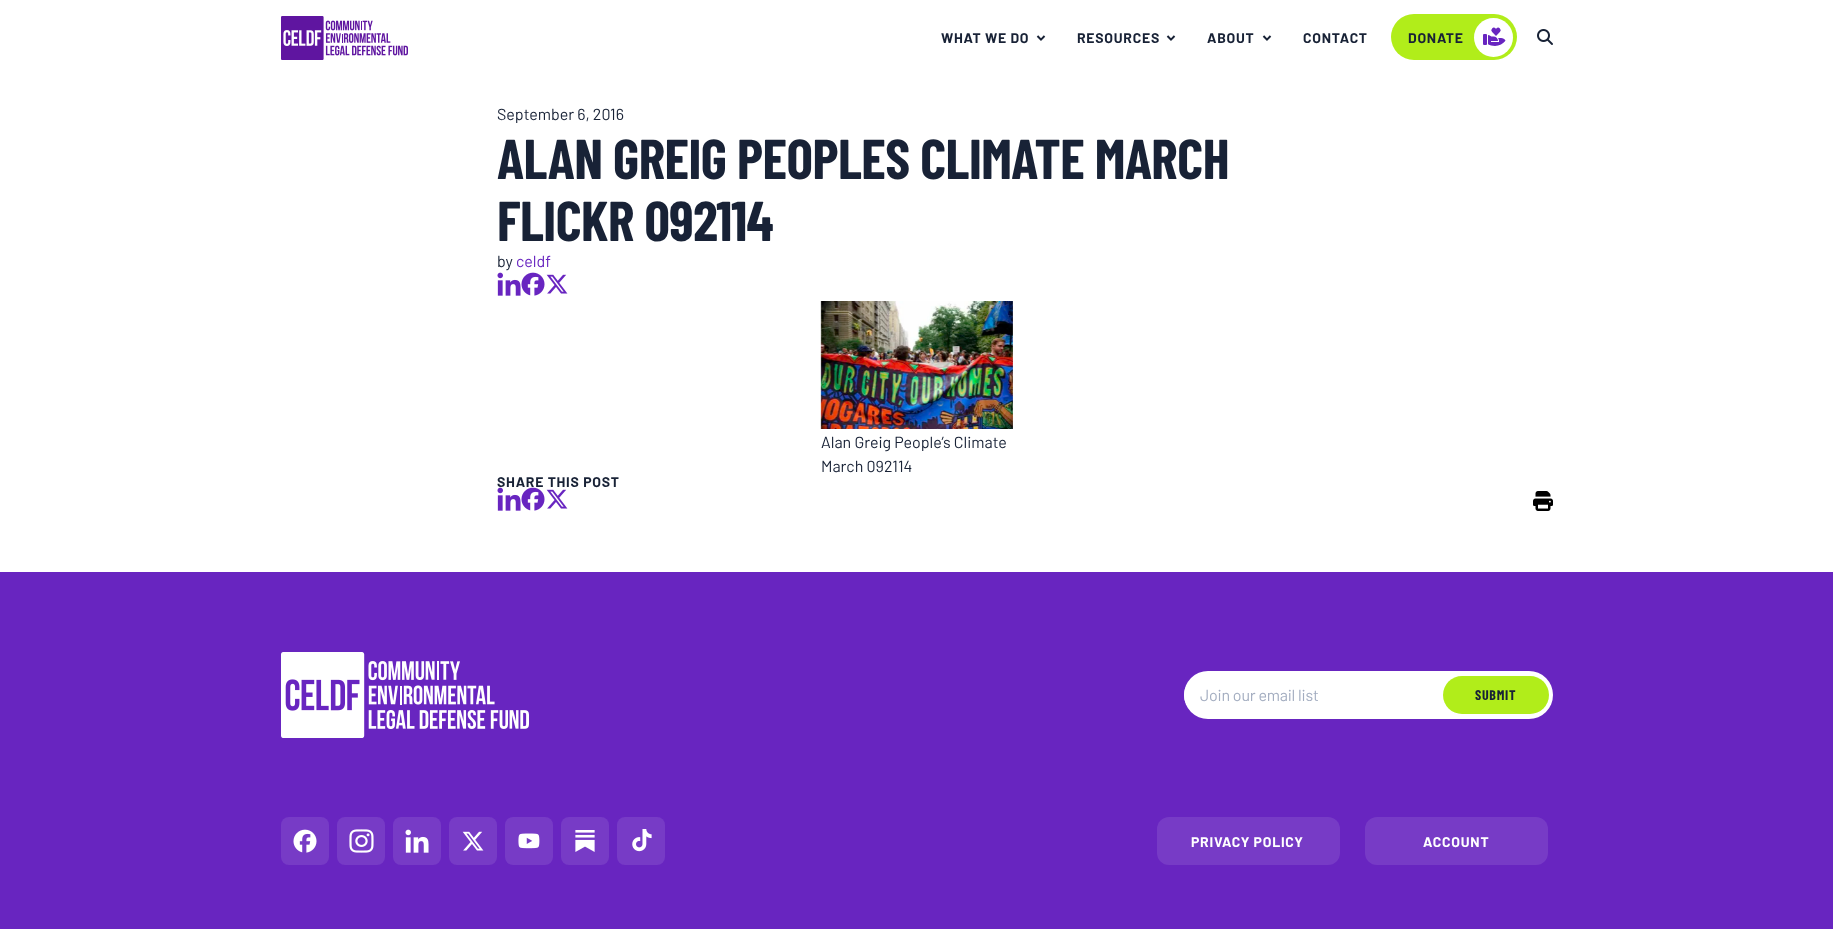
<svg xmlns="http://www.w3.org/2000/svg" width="1833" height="929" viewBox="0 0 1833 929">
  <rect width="100%" height="100%" fill="#ffffff"/>
  <image x="281" y="16" width="127" height="44" href="img1.png"/>
  <text x="941" y="43" font-family="Barlow" font-size="14" font-weight="bold" letter-spacing="0.75" fill="#182236">WHAT WE DO</text>
  <image x="1036" y="35" width="10" height="6" href="img2.png"/>
  <text x="1077" y="43" font-family="Barlow" font-size="14" font-weight="bold" letter-spacing="0.75" fill="#182236">RESOURCES</text>
  <image x="1166" y="35" width="10" height="6" href="img2.png"/>
  <text x="1207" y="43" font-family="Barlow" font-size="14" font-weight="bold" letter-spacing="0.75" fill="#182236">ABOUT</text>
  <image x="1262" y="35" width="10" height="6" href="img2.png"/>
  <text x="1303" y="43" font-family="Barlow" font-size="14" font-weight="bold" letter-spacing="0.75" fill="#182236">CONTACT</text>
  <rect x="1391" y="14" width="126" height="46" rx="23" fill="#b1ed1a"/>
  <text x="1408" y="43" font-family="Barlow" font-size="14" font-weight="bold" letter-spacing="0.75" fill="#182236">DONATE</text>
  <circle cx="1493.5" cy="37.5" r="19.5" fill="#ffffff"/>
  <image x="1483" y="27" width="23" height="19" href="img3.png"/>
  <image x="1537" y="29" width="16" height="16" href="img4.png"/>
  <text x="497" y="120" font-family="Barlow" font-size="16" fill="#182236">September 6, 2016</text>
  <text x="497" y="179" font-family="Barlow Condensed" font-size="56" font-weight="bold" letter-spacing="-0.55" fill="#182236">ALAN GREIG PEOPLES CLIMATE MARCH</text>
  <text x="497" y="241" font-family="Barlow Condensed" font-size="56" font-weight="bold" letter-spacing="-0.55" fill="#182236">FLICKR 092114</text>
  <text x="497" y="267" font-family="Barlow" font-size="16" fill="#182236">by</text>
  <text x="516" y="267" font-family="Barlow" font-size="16" fill="#6825c0">celdf</text>
  <image x="497" y="272" width="24" height="24" href="img5.png"/>
  <image x="521" y="272" width="24" height="24" href="img6.png"/>
  <image x="546" y="274" width="22" height="20" href="img7.png"/>
  <image x="820" y="301" width="193" height="128" href="img8.png"/>
  <text x="821" y="448" font-family="Barlow" font-size="16" fill="#182236">Alan Greig People’s Climate</text>
  <text x="821" y="472" font-family="Barlow" font-size="16" fill="#182236">March 092114</text>
  <text x="497" y="487" font-family="Barlow" font-size="14" font-weight="bold" letter-spacing="0.75" fill="#182236">SHARE THIS POST</text>
  <image x="497" y="487" width="24" height="24" href="img9.png"/>
  <image x="521" y="487" width="24" height="24" href="img6.png"/>
  <image x="546" y="489" width="22" height="20" href="img7.png"/>
  <image x="1533" y="491" width="20" height="20" href="img10.png"/>
  <rect x="0" y="572" width="1833" height="357" fill="#6825c0"/>
  <image x="281" y="652" width="248" height="86" href="img11.png"/>
  <rect x="281" y="817" width="48" height="48" rx="8" fill="#773bc6"/>
  <image x="293" y="829" width="24" height="24" href="img12.png"/>
  <rect x="337" y="817" width="48" height="48" rx="8" fill="#773bc6"/>
  <image x="349" y="829" width="25" height="24" href="img13.png"/>
  <rect x="393" y="817" width="48" height="48" rx="8" fill="#773bc6"/>
  <image x="405" y="829" width="24" height="24" href="img14.png"/>
  <rect x="449" y="817" width="48" height="48" rx="8" fill="#773bc6"/>
  <image x="462" y="831" width="22" height="20" href="img15.png"/>
  <rect x="505" y="817" width="48" height="48" rx="8" fill="#773bc6"/>
  <image x="518" y="833" width="22" height="16" href="img16.png"/>
  <rect x="561" y="817" width="48" height="48" rx="8" fill="#773bc6"/>
  <image x="575" y="830" width="20" height="22" href="img17.png"/>
  <rect x="617" y="817" width="48" height="48" rx="8" fill="#773bc6"/>
  <image x="632" y="829" width="20" height="23" href="img18.png"/>
  <rect x="1184" y="671" width="369" height="48" rx="24" fill="#ffffff"/>
  <rect x="1184" y="676" width="243" height="38" rx="19" fill="#ffffff"/>
  <text x="1200" y="701" font-family="Barlow" font-size="16" letter-spacing="-0.2" fill="#a3adc0">Join our email list</text>
  <rect x="1443" y="676" width="106" height="38" rx="19" fill="#b1ed1a"/>
  <text x="1475" y="700" font-family="Barlow Condensed" font-size="14" font-weight="bold" letter-spacing="0.75" fill="#182236">SUBMIT</text>
  <rect x="1157" y="817" width="183" height="48" rx="12" fill="#773bc6"/>
  <text x="1191" y="847" font-family="Barlow" font-size="14" font-weight="bold" letter-spacing="0.75" fill="#ffffff">PRIVACY POLICY</text>
  <rect x="1365" y="817" width="183" height="48" rx="12" fill="#773bc6"/>
  <text x="1423" y="847" font-family="Barlow" font-size="14" font-weight="bold" letter-spacing="0.75" fill="#ffffff">ACCOUNT</text>
</svg>
